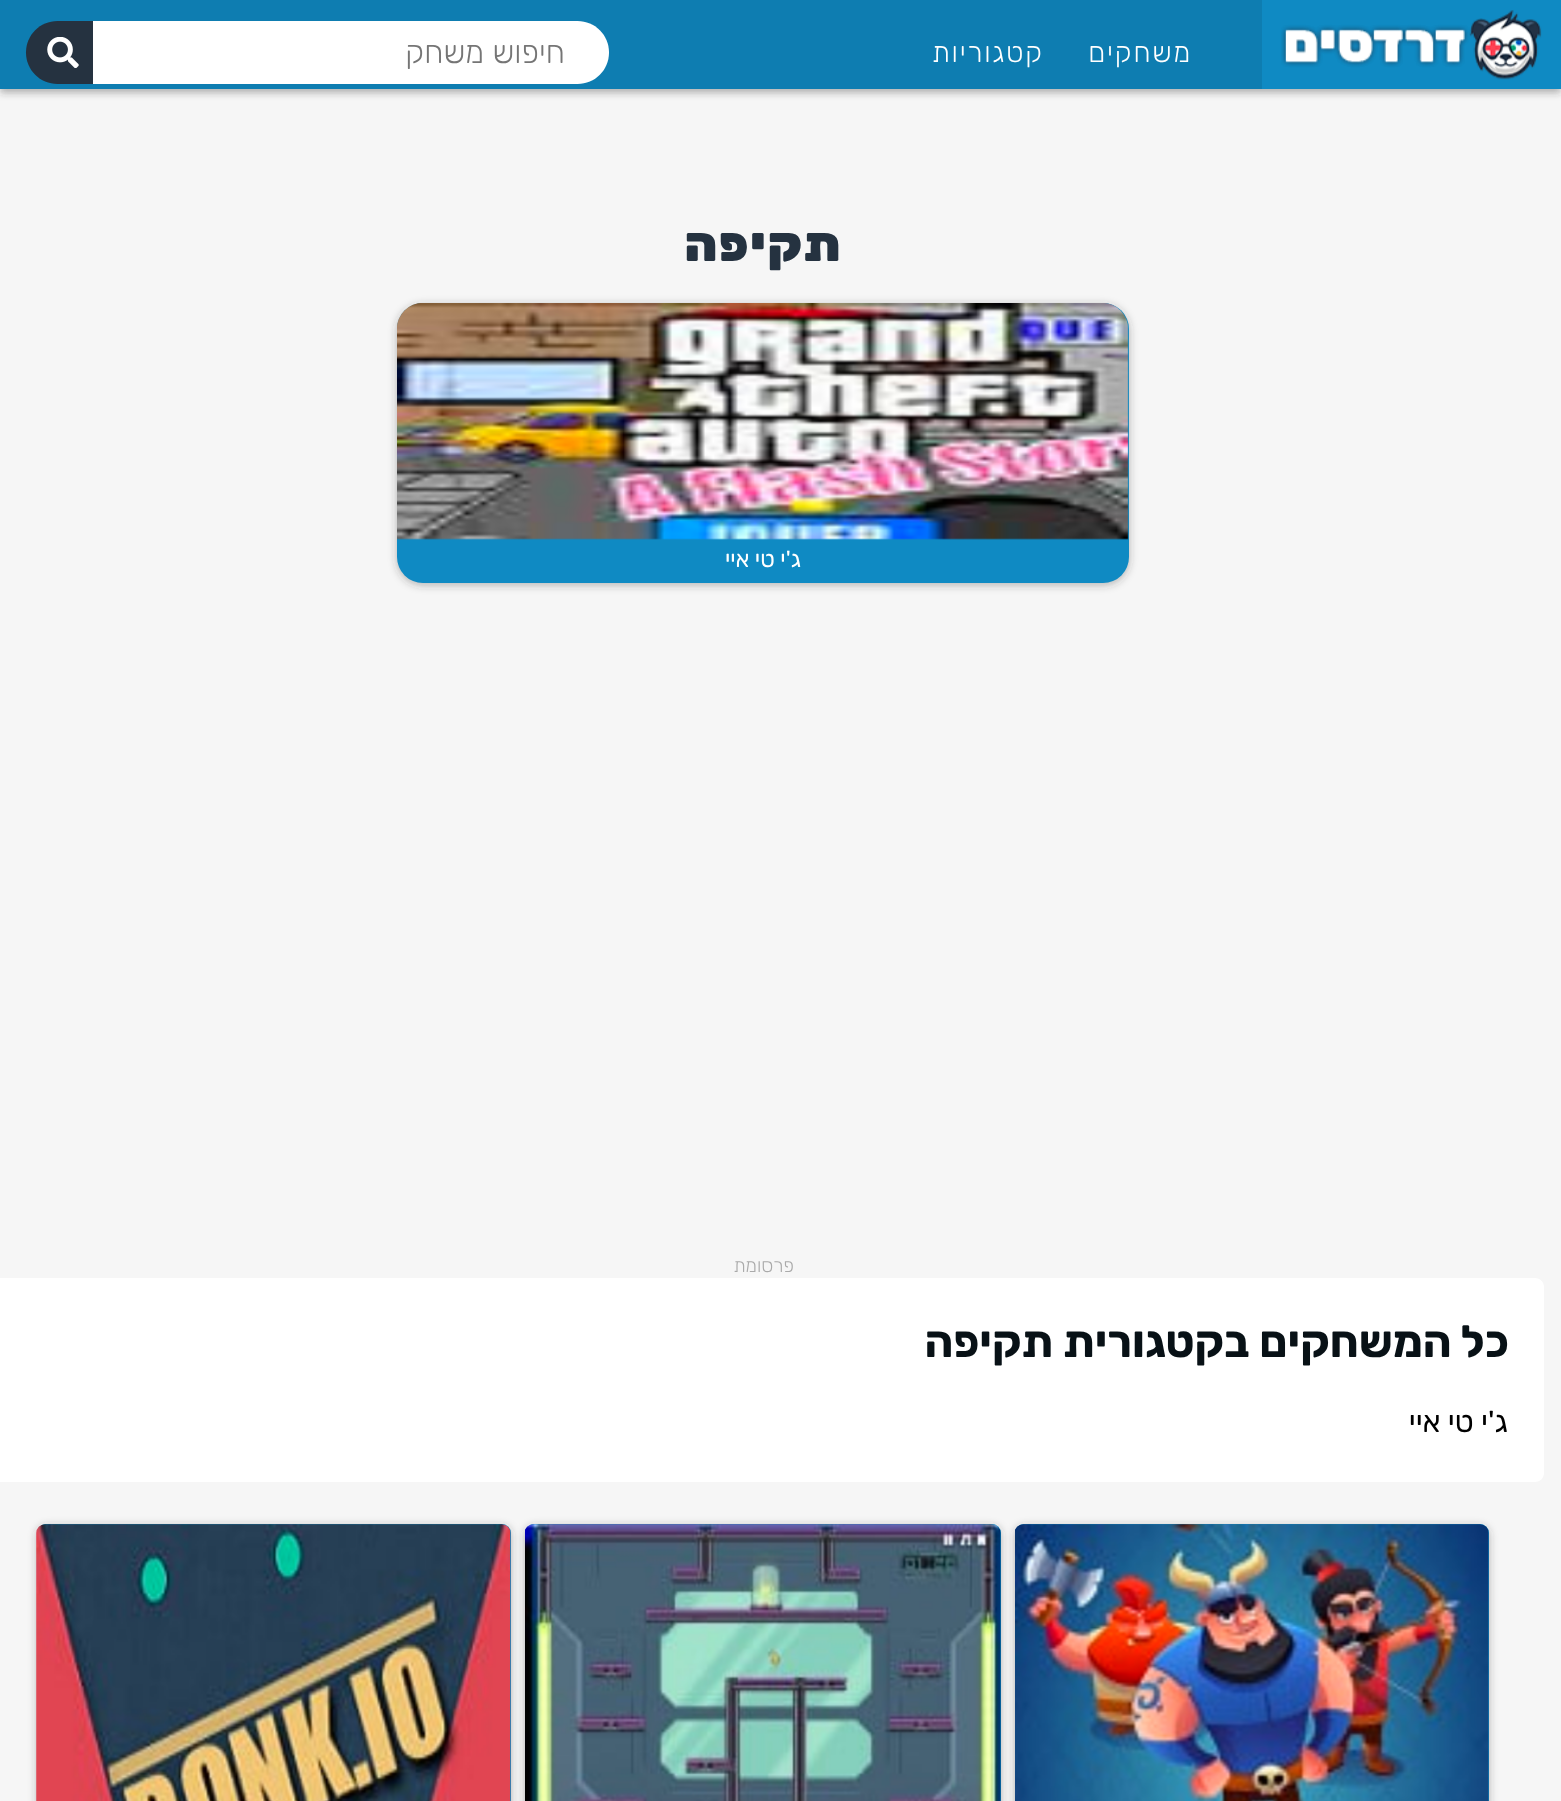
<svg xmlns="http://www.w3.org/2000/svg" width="1561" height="1801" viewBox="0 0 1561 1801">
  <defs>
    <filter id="blur1" x="-50%" y="-200%" width="200%" height="500%"><feGaussianBlur stdDeviation="3.5"/></filter>
    <filter id="blur2" x="-50%" y="-200%" width="200%" height="500%"><feGaussianBlur stdDeviation="4.5"/></filter>
  </defs>
  <rect width="100%" height="100%" fill="#f6f6f6"/>
  <rect x="0" y="4" width="1561" height="89" fill="#323232" fill-opacity="0.35" filter="url(#blur1)"/>
  <rect x="0" y="0" width="1262" height="89" fill="#0e7db1"/>
  <rect x="1262" y="0" width="299" height="89" fill="#0f8ac3"/>
  <image x="1281" y="10" width="261" height="70" href="img1.png"/>
  <text x="1192" y="62" font-family="Rubik" font-size="28" font-weight="300" letter-spacing="1.75" direction="rtl" fill="#ffffff">משחקים</text>
  <text x="1044" y="62" font-family="Rubik" font-size="28" font-weight="300" letter-spacing="1.75" direction="rtl" fill="#ffffff">קטגוריות</text>
  <path d="M93 21H577.5C595 21 609 35 609 52.5C609 70 595 84 577.5 84H93Z" fill="#ffffff"/>
  <text x="565" y="63" font-family="Rubik" font-size="31.5" font-weight="300" direction="rtl" fill="#757575">חיפוש משחק</text>
  <path d="M57.5 21H93V84H57.5C40 84 26 70 26 52.5C26 35 40 21 57.5 21Z" fill="#253240"/>
  <image x="47" y="37" width="32" height="31" href="img2.png"/>
  <text x="842" y="261" font-family="Rubik" font-size="49" font-weight="900" letter-spacing="1.75" direction="rtl" fill="#253240">תקיפה</text>
  <rect x="397" y="305" width="732" height="280" rx="26" fill="#323232" fill-opacity="0.35" filter="url(#blur2)"/>
  <rect x="397" y="303" width="732" height="280" rx="26" fill="#0f8ac3"/>
  <image x="397" y="303" width="732" height="237" href="img3.png"/>
  <text x="801" y="567" font-family="Rubik" font-size="23" direction="rtl" fill="#ffffff">ג'י טי איי</text>
  <text x="794" y="1272" font-family="Rubik" font-size="19" font-weight="300" direction="rtl" fill="#aaaaaa">פרסומת</text>
  <path d="M0 1278H1535C1540 1278 1544 1282 1544 1287V1473C1544 1478 1540 1482 1535 1482H0Z" fill="#ffffff"/>
  <text x="1509" y="1357" word-spacing="0.5" font-family="Rubik" font-size="44.6" font-weight="bold" direction="rtl" fill="#081116">כל המשחקים בקטגורית תקיפה</text>
  <text x="1508" y="1432" font-family="Rubik" font-size="30" direction="rtl" fill="#000000">ג'י טי איי</text>
  <rect x="1015" y="1526" width="474" height="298" rx="9" fill="#323232" fill-opacity="0.35" filter="url(#blur2)"/>
  <rect x="1015" y="1524" width="474" height="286" rx="9" fill="#0f8ac3"/>
  <rect x="525" y="1526" width="476" height="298" rx="9" fill="#323232" fill-opacity="0.35" filter="url(#blur2)"/>
  <image x="1015" y="1524" width="474" height="277" href="img4.png"/>
  <rect x="525" y="1524" width="476" height="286" rx="9" fill="#0f8ac3"/>
  <rect x="37" y="1526" width="474" height="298" rx="9" fill="#323232" fill-opacity="0.35" filter="url(#blur2)"/>
  <image x="525" y="1524" width="476" height="277" href="img5.png"/>
  <rect x="37" y="1524" width="474" height="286" rx="9" fill="#0f8ac3"/>
  <image x="36" y="1524" width="475" height="277" href="img6.png"/>
</svg>
